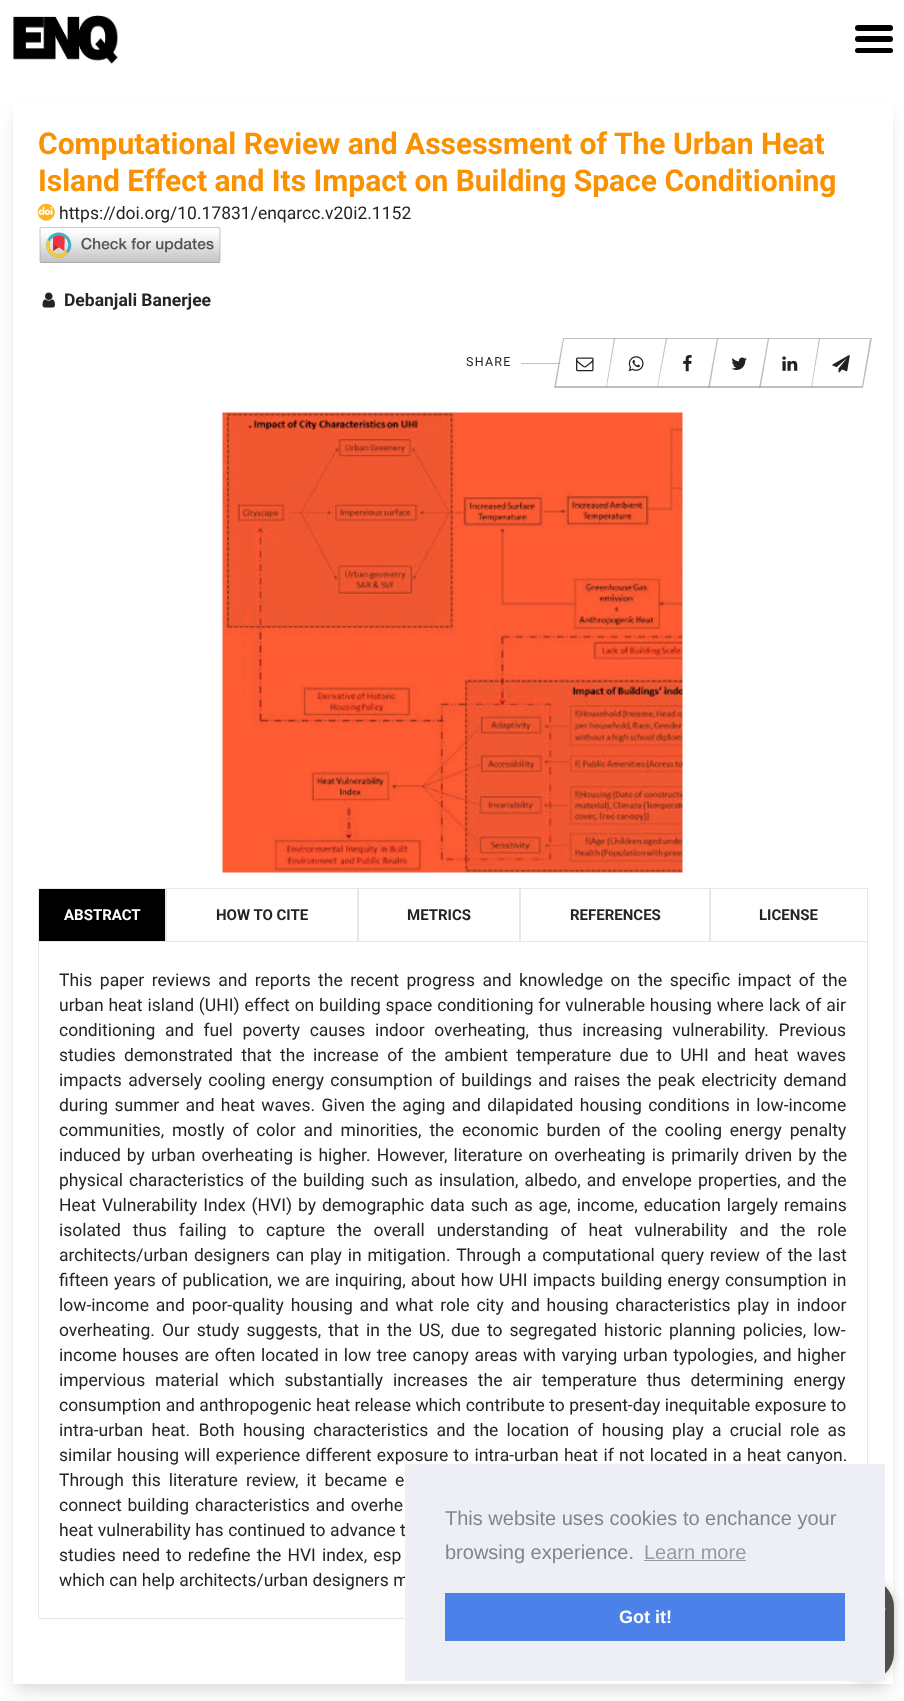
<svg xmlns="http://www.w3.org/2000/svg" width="904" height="1701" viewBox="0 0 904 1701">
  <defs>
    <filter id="blur1" x="-50%" y="-200%" width="200%" height="500%"><feGaussianBlur stdDeviation="4"/></filter>
    <filter id="blur2" x="-50%" y="-200%" width="200%" height="500%"><feGaussianBlur stdDeviation="9.5"/></filter>
    <filter id="blur3" x="-50%" y="-200%" width="200%" height="500%"><feGaussianBlur stdDeviation="4.5"/></filter>
    <clipPath id="clip1"><rect x="838" y="1579" width="56" height="102" rx="28"/></clipPath>
  </defs>
  <rect width="100%" height="100%" fill="#ffffff"/>
  <image x="13" y="15" width="105" height="49" href="img1.png"/>
  <rect x="855" y="25" width="38" height="6" rx="3" fill="#000000"/>
  <rect x="855" y="36" width="38" height="6" rx="3" fill="#000000"/>
  <rect x="855" y="48" width="38" height="5" rx="2.5" fill="#000000"/>
  <rect x="15" y="108" width="875" height="1578" fill="#000000" fill-opacity="0.05" filter="url(#blur1)"/>
  <rect x="16" y="116" width="873" height="1577" fill="#000000" fill-opacity="0.1" filter="url(#blur2)"/>
  <rect x="13" y="102" width="880" height="1582" fill="#ffffff"/>
  <text x="38" y="154" font-family="Roboto" font-size="30" font-weight="bold" fill="#fa9101">Computational Review and Assessment of The Urban Heat</text>
  <text x="38" y="191" font-family="Roboto" font-size="30" font-weight="bold" fill="#fa9101">Island Effect and Its Impact on Building Space Conditioning</text>
  <image x="37" y="203" width="18" height="18" href="img2.png"/>
  <text x="59" y="219" font-family="Roboto" font-size="17.5" fill="#252422">https://doi.org/10.17831/enqarcc.v20i2.1152</text>
  <image x="39" y="227" width="182" height="36" href="img3.png"/>
  <image x="42" y="292" width="13" height="16" href="img4.png"/>
  <text x="64" y="306" font-family="Roboto" font-size="17.5" font-weight="bold" fill="#252422">Debanjali Banerjee</text>
  <text x="466" y="366" font-family="Roboto" font-size="12.5" letter-spacing="1.25" fill="#252422">SHARE</text>
  <rect x="521" y="363" width="38" height="1" fill="#c0c0c0"/>
  <path d="M563 338H872L870 339H564Z" fill="#c0c0c0"/>
  <path d="M863 388L862 386L870 339L872 338Z" fill="#2c2c2c" fill-opacity="0.3"/>
  <path d="M863 388H554L556 386H862Z" fill="#2c2c2c" fill-opacity="0.3"/>
  <path d="M554 388L563 338L564 339L556 386Z" fill="#2c2c2c" fill-opacity="0.3"/>
  <image x="576" y="357" width="18" height="15" href="img5.png"/>
  <path d="M606 388L614 338L615 339L607 386Z" fill="#2c2c2c" fill-opacity="0.3"/>
  <image x="628" y="356" width="16" height="16" href="img6.png"/>
  <path d="M657 388L666 338L667 339L658 386Z" fill="#2c2c2c" fill-opacity="0.3"/>
  <image x="683" y="355" width="9" height="17" href="img7.png"/>
  <path d="M708 388L717 338L718 339L710 386Z" fill="#2c2c2c" fill-opacity="0.3"/>
  <image x="731" y="357" width="16" height="13" href="img8.png"/>
  <path d="M759 388L768 338L769 339L761 386Z" fill="#2c2c2c" fill-opacity="0.3"/>
  <image x="782" y="356" width="16" height="15" href="img9.png"/>
  <path d="M811 388L819 338L820 339L812 386Z" fill="#2c2c2c" fill-opacity="0.3"/>
  <image x="832" y="355" width="18" height="18" href="img10.png"/>
  <image x="222" y="412" width="461" height="461" href="img11.png"/>
  <rect x="38.5" y="888.5" width="127" height="54" fill="none" stroke="#e5e7eb"/>
  <rect x="39" y="889" width="126" height="52" fill="#000000"/>
  <text x="64" y="920" font-family="Roboto" font-size="15" font-weight="bold" fill="#ffffff">ABSTRACT</text>
  <rect x="166.5" y="888.5" width="191" height="54" fill="none" stroke="#e5e7eb"/>
  <text x="216" y="920" font-family="Roboto" font-size="15" font-weight="bold" fill="#252422">HOW TO CITE</text>
  <rect x="358.5" y="888.5" width="161" height="54" fill="none" stroke="#e5e7eb"/>
  <text x="407" y="920" font-family="Roboto" font-size="15" font-weight="bold" fill="#252422">METRICS</text>
  <rect x="520.5" y="888.5" width="189" height="54" fill="none" stroke="#e5e7eb"/>
  <text x="570" y="920" font-family="Roboto" font-size="15" font-weight="bold" fill="#252422">REFERENCES</text>
  <rect x="710.5" y="888.5" width="157" height="54" fill="none" stroke="#e5e7eb"/>
  <text x="759" y="920" font-family="Roboto" font-size="15" font-weight="bold" fill="#252422">LICENSE</text>
  <rect x="39" y="942" width="828" height="1" fill="#ffffff"/>
  <rect x="38.5" y="941.5" width="829" height="677" fill="none" stroke="#e5e7eb"/>
  <text x="59" y="986" word-spacing="3.1" font-family="Roboto" font-size="17.5" fill="#252422">This paper reviews and reports the recent progress and knowledge on the specific impact of the</text>
  <text x="59" y="1011" word-spacing="0.5" font-family="Roboto" font-size="17.5" fill="#252422">urban heat island (UHI) effect on building space conditioning for vulnerable housing where lack of air</text>
  <text x="59" y="1036" word-spacing="5.25" font-family="Roboto" font-size="17.5" fill="#252422">conditioning and fuel poverty causes indoor overheating, thus increasing vulnerability. Previous</text>
  <text x="59" y="1061" word-spacing="3.9" font-family="Roboto" font-size="17.5" fill="#252422">studies demonstrated that the increase of the ambient temperature due to UHI and heat waves</text>
  <text x="59" y="1086" word-spacing="2" font-family="Roboto" font-size="17.5" fill="#252422">impacts adversely cooling energy consumption of buildings and raises the peak electricity demand</text>
  <text x="59" y="1111" word-spacing="2" font-family="Roboto" font-size="17.5" fill="#252422">during summer and heat waves. Given the aging and dilapidated housing conditions in low-income</text>
  <text x="59" y="1136" word-spacing="3.5" font-family="Roboto" font-size="17.5" fill="#252422">communities, mostly of color and minorities, the economic burden of the cooling energy penalty</text>
  <text x="59" y="1161" word-spacing="1.75" font-family="Roboto" font-size="17.5" fill="#252422">induced by urban overheating is higher. However, literature on overheating is primarily driven by the</text>
  <text x="59" y="1186" word-spacing="1.75" font-family="Roboto" font-size="17.5" fill="#252422">physical characteristics of the building such as insulation, albedo, and envelope properties, and the</text>
  <text x="59" y="1211" word-spacing="1.6" font-family="Roboto" font-size="17.5" fill="#252422">Heat Vulnerability Index (HVI) by demographic data such as age, income, education largely remains</text>
  <text x="59" y="1236" word-spacing="7.6" font-family="Roboto" font-size="17.5" fill="#252422">isolated thus failing to capture the overall understanding of heat vulnerability and the role</text>
  <text x="59" y="1261" word-spacing="1.5" font-family="Roboto" font-size="17.5" fill="#252422">architects/urban designers can play in mitigation. Through a computational query review of the last</text>
  <text x="59" y="1286" word-spacing="0.9" font-family="Roboto" font-size="17.5" fill="#252422">fifteen years of publication, we are inquiring, about how UHI impacts building energy consumption in</text>
  <text x="59" y="1311" word-spacing="2.5" font-family="Roboto" font-size="17.5" fill="#252422">low-income and poor-quality housing and what role city and housing characteristics play in indoor</text>
  <text x="59" y="1336" word-spacing="2.75" font-family="Roboto" font-size="17.5" fill="#252422">overheating. Our study suggests, that in the US, due to segregated historic planning policies, low-</text>
  <text x="59" y="1361" word-spacing="1.25" font-family="Roboto" font-size="17.5" fill="#252422">income houses are often located in low tree canopy areas with varying urban typologies, and higher</text>
  <text x="59" y="1386" word-spacing="5.5" font-family="Roboto" font-size="17.5" fill="#252422">impervious material which substantially increases the air temperature thus determining energy</text>
  <text x="59" y="1411" word-spacing="0.1" font-family="Roboto" font-size="17.5" fill="#252422">consumption and anthropogenic heat release which contribute to present-day inequitable exposure to</text>
  <text x="59" y="1436" word-spacing="3.9" font-family="Roboto" font-size="17.5" fill="#252422">intra-urban heat. Both housing characteristics and the location of housing play a crucial role as</text>
  <text x="59" y="1461" word-spacing="1" font-family="Roboto" font-size="17.5" fill="#252422">similar housing will experience different exposure to intra-urban heat if not located in a heat canyon.</text>
  <text x="59" y="1486" word-spacing="3.75" font-family="Roboto" font-size="17.5" fill="#252422">Through this literature review, it became e</text>
  <text x="59" y="1511" word-spacing="1.5" font-family="Roboto" font-size="17.5" fill="#252422">connect building characteristics and overhe</text>
  <text x="59" y="1536" word-spacing="0.25" font-family="Roboto" font-size="17.5" fill="#252422">heat vulnerability has continued to advance t</text>
  <text x="59" y="1561" word-spacing="1.75" font-family="Roboto" font-size="17.5" fill="#252422">studies need to redefine the HVI index, esp</text>
  <text x="59" y="1586" font-family="Roboto" font-size="17.5" fill="#252422">which can help architects/urban designers m</text>
  <rect x="838" y="1579" width="56" height="102" rx="28" fill="#000000" fill-opacity="0.2" filter="url(#blur3)"/>
  <rect x="838" y="1579" width="56" height="102" rx="28" fill="#514e4b"/>
  <g clip-path="url(#clip1)">
    <circle cx="881" cy="1588" r="13" fill="#514e4b"/>
  </g>
  <path d="M885.5 1609C885.5 1610.5 884 1610.5 883 1610.5C881.5 1610.5 879.5 1611 879.5 1609C879.5 1607 881.5 1607.5 883 1607.5C884 1607.5 885.5 1607.5 885.5 1609Z" fill="#ffffff"/>
  <rect x="405" y="1464" width="480" height="217" fill="#edeff5"/>
  <text x="445" y="1525" font-family="Liberation Sans" font-size="20" fill="#838391">This website uses cookies to enchance your</text>
  <text x="445" y="1559" font-family="Liberation Sans" font-size="20" fill="#838391">browsing experience.</text>
  <text x="644" y="1559" font-family="Liberation Sans" font-size="20" fill="#9899a5">Learn more</text>
  <rect x="644" y="1560" width="102" height="1" fill="#9899a5"/>
  <rect x="445" y="1593" width="400" height="48" fill="#4b81e8"/>
  <text x="619" y="1623" font-family="Liberation Sans" font-size="18" font-weight="bold" fill="#ffffff">Got it!</text>
</svg>
